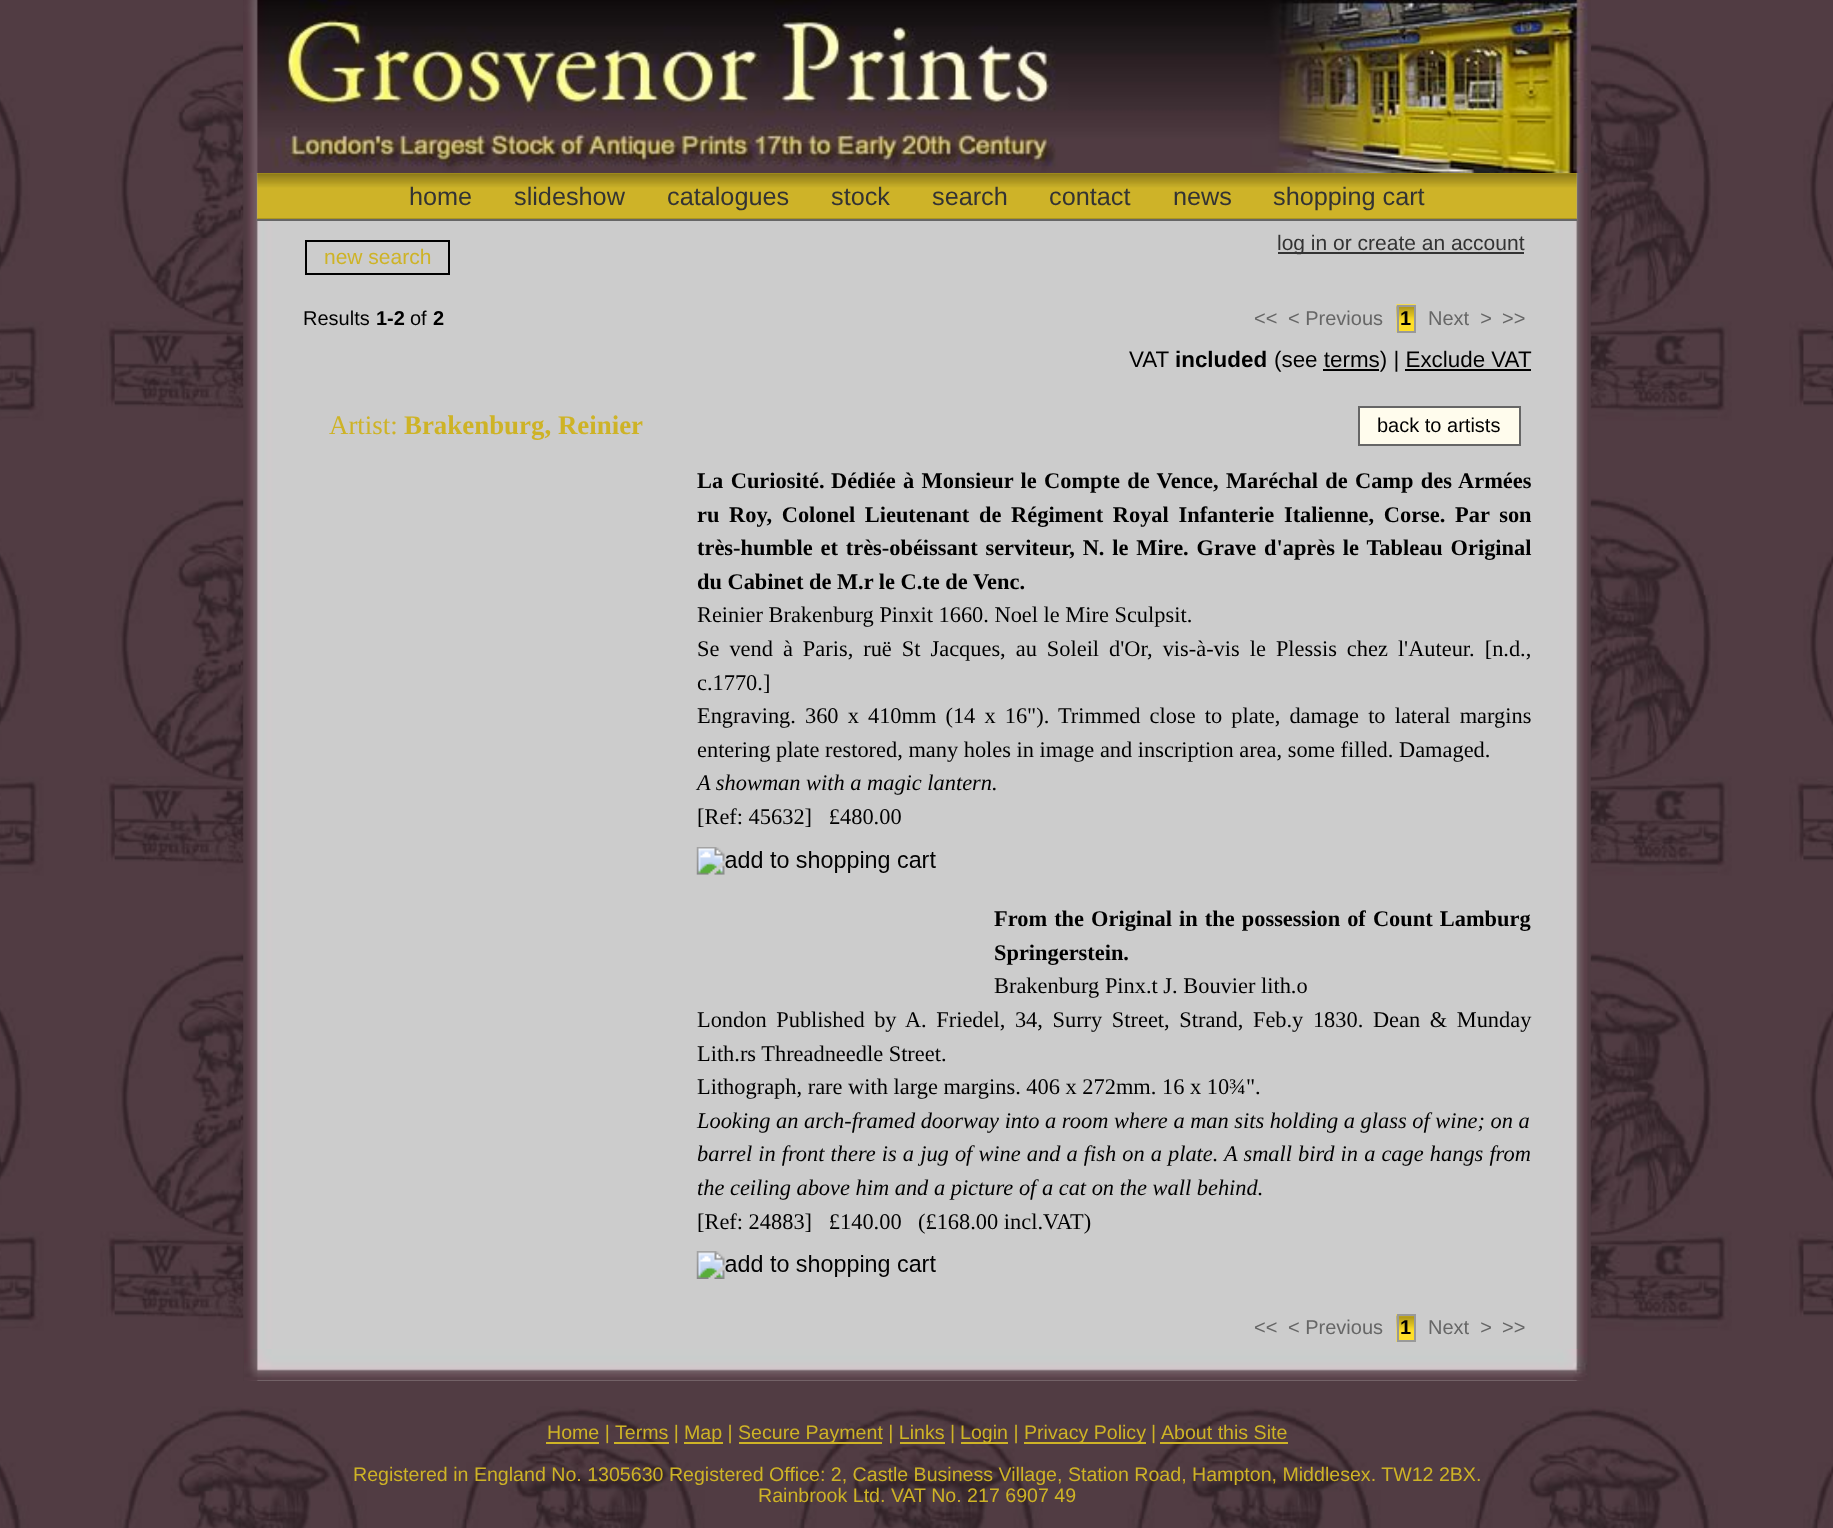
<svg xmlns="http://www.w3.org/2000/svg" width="1833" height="1528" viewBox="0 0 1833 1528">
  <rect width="100%" height="100%" fill="#ffffff"/>
  <image x="0" y="0" width="1833" height="1528" href="img1.png"/>
  <image x="243" y="0" width="1348" height="1381" href="img2.png"/>
  <image x="243" y="0" width="1348" height="173" href="img3.png"/>
  <image x="257" y="173" width="1320" height="46" href="img4.png"/>
  <rect x="257" y="219" width="1320" height="2" fill="#666666"/>
  <text x="409" y="205" font-family="Liberation Sans" font-size="25.25" fill="#333333">home</text>
  <text x="514" y="205" font-family="Liberation Sans" font-size="25.25" fill="#333333">slideshow</text>
  <text x="667" y="205" font-family="Liberation Sans" font-size="25.25" fill="#333333">catalogues</text>
  <text x="831" y="205" font-family="Liberation Sans" font-size="25.25" fill="#333333">stock</text>
  <text x="932" y="205" font-family="Liberation Sans" font-size="25.25" fill="#333333">search</text>
  <text x="1049" y="205" font-family="Liberation Sans" font-size="25.25" fill="#333333">contact</text>
  <text x="1173" y="205" font-family="Liberation Sans" font-size="25.25" fill="#333333">news</text>
  <text x="1273" y="205" font-family="Liberation Sans" font-size="25.25" fill="#333333">shopping cart</text>
  <rect x="306" y="241" width="143" height="33" fill="none" stroke="#000000" stroke-width="2"/>
  <text x="324" y="264" font-family="Liberation Sans" font-size="21" fill="#ceb326">new search</text>
  <rect x="1278" y="252" width="246" height="2" fill="#333333"/>
  <text x="1277" y="250" font-family="Liberation Sans" font-size="21" fill="#333333">log in or create an account</text>
  <text x="303" y="325" font-family="Liberation Sans" font-size="20" fill="#000000">Results</text>
  <text x="376" y="325" font-family="Liberation Sans" font-size="20" font-weight="bold" fill="#000000">1-2</text>
  <text x="410" y="325" font-family="Liberation Sans" font-size="20" fill="#000000">of</text>
  <text x="433" y="325" font-family="Liberation Sans" font-size="20" font-weight="bold" fill="#000000">2</text>
  <text x="1288" y="325" font-family="Liberation Sans" font-size="20" fill="#666666">&lt; Previous</text>
  <image x="1396" y="304" width="20" height="29" href="img5.png"/>
  <text x="1254" y="325" font-family="Liberation Sans" font-size="20" fill="#666666">&lt;&lt;</text>
  <rect x="1398" y="306" width="17" height="26" fill="none" stroke="#999999" stroke-width="2"/>
  <text x="1400" y="325" font-family="Liberation Sans" font-size="20" font-weight="bold" fill="#000000">1</text>
  <text x="1428" y="325" font-family="Liberation Sans" font-size="20" fill="#666666" xml:space="preserve">Next  &gt;</text>
  <text x="1502" y="325" font-family="Liberation Sans" font-size="20" fill="#666666">&gt;&gt;</text>
  <text x="1129" y="367" font-family="Liberation Sans" font-size="22.4" fill="#000000">VAT</text>
  <text x="1175" y="367" font-family="Liberation Sans" font-size="22.4" font-weight="bold" fill="#000000">included</text>
  <text x="1274" y="367" font-family="Liberation Sans" font-size="22.4" fill="#000000">(see terms) | Exclude VAT</text>
  <rect x="1323" y="369" width="56" height="2" fill="#000000"/>
  <rect x="1405" y="369" width="126" height="2" fill="#000000"/>
  <text x="329" y="434" font-family="Liberation Serif" font-size="26.9" fill="#ceb326">Artist:</text>
  <text x="404" y="434" font-family="Liberation Serif" font-size="26.9" font-weight="bold" fill="#ceb326">Brakenburg, Reinier</text>
  <rect x="1359" y="407" width="161" height="38" fill="#fffced" stroke="#666666" stroke-width="2"/>
  <text x="1377" y="432" font-family="Liberation Sans" font-size="20" fill="#000000">back to artists</text>
  <text x="697" y="488" word-spacing="2" font-family="Liberation Serif" font-size="22.4" font-weight="bold" fill="#000000">La Curiosité.</text>
  <text x="831" y="488" word-spacing="1.75" font-family="Liberation Serif" font-size="22.4" font-weight="bold" fill="#000000">Dédiée à Monsieur le Compte de Vence, Maréchal de Camp des Armées</text>
  <text x="697" y="522" word-spacing="4.1" font-family="Liberation Serif" font-size="22.4" font-weight="bold" fill="#000000">ru Roy, Colonel Lieutenant de Régiment Royal Infanterie Italienne, Corse. Par son</text>
  <text x="697" y="555" word-spacing="2.25" font-family="Liberation Serif" font-size="22.4" font-weight="bold" fill="#000000">très-humble et très-obéissant serviteur, N. le Mire. Grave d'après le Tableau Original</text>
  <text x="697" y="589" font-family="Liberation Serif" font-size="22.4" font-weight="bold" fill="#000000">du Cabinet de M.r le C.te de Venc.</text>
  <text x="697" y="622" font-family="Liberation Serif" font-size="22.4" fill="#000000">Reinier Brakenburg Pinxit 1660. Noel le Mire Sculpsit.</text>
  <text x="697" y="656" word-spacing="4.4" font-family="Liberation Serif" font-size="22.4" fill="#000000">Se vend à Paris, ruë St Jacques, au Soleil d'Or, vis-à-vis le Plessis chez l'Auteur. [n.d.,</text>
  <text x="697" y="690" font-family="Liberation Serif" font-size="22.4" fill="#000000">c.1770.]</text>
  <text x="697" y="723" word-spacing="3.5" font-family="Liberation Serif" font-size="22.4" fill="#000000">Engraving. 360 x 410mm (14 x 16"). Trimmed close to plate, damage to lateral margins</text>
  <text x="697" y="757" font-family="Liberation Serif" font-size="22.4" fill="#000000">entering plate restored, many holes in image and inscription area, some filled. Damaged.</text>
  <text x="697" y="790" font-family="Liberation Serif" font-size="22.4" font-style="italic" fill="#000000">A showman with a magic lantern.</text>
  <text x="697" y="824" font-family="Liberation Serif" font-size="22.4" fill="#000000" xml:space="preserve">[Ref: 45632]   £480.00</text>
  <image x="696" y="847" width="240" height="28" href="img6.png"/>
  <text x="994" y="926" word-spacing="1.5" font-family="Liberation Serif" font-size="22.4" font-weight="bold" fill="#000000">From the Original in the possession of Count Lamburg</text>
  <text x="994" y="960" font-family="Liberation Serif" font-size="22.4" font-weight="bold" fill="#000000">Springerstein.</text>
  <text x="994" y="993" font-family="Liberation Serif" font-size="22.4" fill="#000000">Brakenburg Pinx.t J. Bouvier lith.o</text>
  <text x="697" y="1027" word-spacing="4" font-family="Liberation Serif" font-size="22.4" fill="#000000">London Published by A. Friedel, 34, Surry Street, Strand, Feb.y 1830. Dean &amp; Munday</text>
  <text x="697" y="1061" font-family="Liberation Serif" font-size="22.4" fill="#000000">Lith.rs Threadneedle Street.</text>
  <text x="697" y="1094" font-family="Liberation Serif" font-size="22.4" fill="#000000">Lithograph, rare with large margins. 406 x 272mm. 16 x 10¾".</text>
  <text x="697" y="1128" font-family="Liberation Serif" font-size="22.4" font-style="italic" fill="#000000">Looking an arch-framed doorway into a room where a man sits holding a glass of wine; on a</text>
  <text x="697" y="1161" word-spacing="0.5" font-family="Liberation Serif" font-size="22.4" font-style="italic" fill="#000000">barrel in front there is a jug of wine and a fish on a plate. A small bird in a cage hangs from</text>
  <text x="697" y="1195" font-family="Liberation Serif" font-size="22.4" font-style="italic" fill="#000000">the ceiling above him and a picture of a cat on the wall behind.</text>
  <text x="697" y="1229" font-family="Liberation Serif" font-size="22.4" fill="#000000" xml:space="preserve">[Ref: 24883]   £140.00</text>
  <text x="918" y="1229" font-family="Liberation Serif" font-size="22.4" fill="#000000">(£168.00 incl.VAT)</text>
  <image x="696" y="1251" width="240" height="28" href="img7.png"/>
  <text x="1288" y="1334" font-family="Liberation Sans" font-size="20" fill="#666666">&lt; Previous</text>
  <image x="1396" y="1314" width="18" height="28" href="img8.png"/>
  <text x="1254" y="1334" font-family="Liberation Sans" font-size="20" fill="#666666">&lt;&lt;</text>
  <rect x="1398" y="1315" width="17" height="26" fill="none" stroke="#999999" stroke-width="2"/>
  <text x="1400" y="1334" font-family="Liberation Sans" font-size="20" font-weight="bold" fill="#000000">1</text>
  <text x="1428" y="1334" font-family="Liberation Sans" font-size="20" fill="#666666" xml:space="preserve">Next  &gt;</text>
  <text x="1502" y="1334" font-family="Liberation Sans" font-size="20" fill="#666666">&gt;&gt;</text>
  <image x="244" y="1349" width="1344" height="32" href="img9.png"/>
  <rect x="546" y="1442" width="53" height="2" fill="#ceb326"/>
  <text x="547" y="1439" font-family="Liberation Sans" font-size="19.6" fill="#ceb326">Home |</text>
  <rect x="614" y="1442" width="55" height="2" fill="#ceb326"/>
  <text x="615" y="1439" font-family="Liberation Sans" font-size="19.6" fill="#ceb326">Terms |</text>
  <rect x="684" y="1442" width="39" height="2" fill="#ceb326"/>
  <text x="684" y="1439" font-family="Liberation Sans" font-size="19.6" fill="#ceb326">Map |</text>
  <rect x="739" y="1442" width="143" height="2" fill="#ceb326"/>
  <text x="738" y="1439" font-family="Liberation Sans" font-size="19.6" fill="#ceb326">Secure Payment | Links |</text>
  <rect x="961" y="1442" width="47" height="2" fill="#ceb326"/>
  <text x="960" y="1439" font-family="Liberation Sans" font-size="19.6" fill="#ceb326">Login |</text>
  <rect x="1024" y="1442" width="122" height="2" fill="#ceb326"/>
  <text x="1024" y="1439" font-family="Liberation Sans" font-size="19.6" fill="#ceb326">Privacy Policy</text>
  <text x="1151" y="1439" font-family="Liberation Sans" font-size="19.6" fill="#ceb326">|</text>
  <text x="1161" y="1439" font-family="Liberation Sans" font-size="19.6" fill="#ceb326">About this Site</text>
  <rect x="1160" y="1442" width="128" height="2" fill="#ceb326"/>
  <rect x="900" y="1442" width="45" height="2" fill="#ceb326"/>
  <text x="353" y="1481" font-family="Liberation Sans" font-size="19.6" fill="#ceb326">Registered in England No. 1305630 Registered Office: 2, Castle Business Village, Station Road, Hampton, Middlesex. TW12 2BX.</text>
  <text x="758" y="1502" font-family="Liberation Sans" font-size="19.6" fill="#ceb326">Rainbrook Ltd. VAT No. 217 6907 49</text>
</svg>
